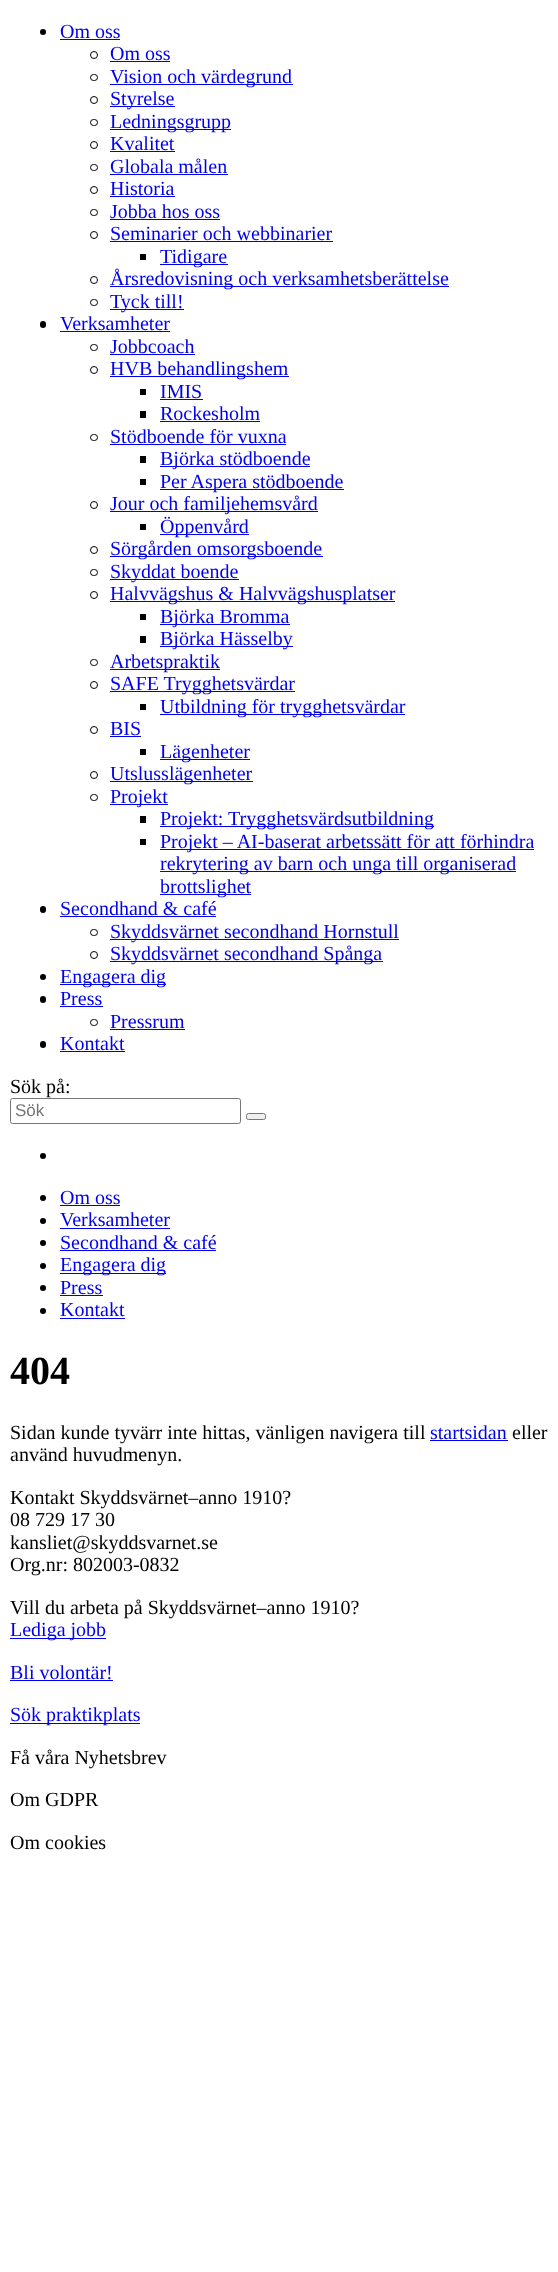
<svg xmlns="http://www.w3.org/2000/svg" width="558" height="2272" viewBox="0 0 558 2272">
  <rect width="100%" height="100%" fill="#ffffff"/>
  <circle cx="43" cy="32" r="3" fill="#000000"/>
  <text x="60" y="38" font-family="Liberation Serif" font-size="20" fill="#0000ee">Om oss</text>
  <rect x="60" y="39" width="60" height="1" fill="#0000ee"/>
  <circle cx="94" cy="55" r="3.5" fill="none" stroke="#000000"/>
  <text x="110" y="60" font-family="Liberation Serif" font-size="20" fill="#0000ee">Om oss</text>
  <rect x="110" y="61" width="60" height="1" fill="#0000ee"/>
  <rect x="90.5" y="74.5" width="7" height="6" rx="3" fill="none" stroke="#000000"/>
  <rect x="110" y="84" width="183" height="1" fill="#0000ee"/>
  <text x="110" y="83" font-family="Liberation Serif" font-size="20" fill="#0000ee">Vision och värdegrund</text>
  <circle cx="94" cy="100" r="3.5" fill="none" stroke="#000000"/>
  <rect x="110" y="106" width="65" height="1" fill="#0000ee"/>
  <text x="110" y="105" font-family="Liberation Serif" font-size="20" fill="#0000ee">Styrelse</text>
  <rect x="90.5" y="119.5" width="7" height="6" rx="3" fill="none" stroke="#000000"/>
  <rect x="110" y="129" width="121" height="1" fill="#0000ee"/>
  <text x="110" y="128" font-family="Liberation Serif" font-size="20" fill="#0000ee">Ledningsgrupp</text>
  <circle cx="94" cy="145" r="3.5" fill="none" stroke="#000000"/>
  <text x="110" y="150" font-family="Liberation Serif" font-size="20" fill="#0000ee">Kvalitet</text>
  <rect x="110" y="151" width="65" height="1" fill="#0000ee"/>
  <rect x="90.5" y="164.5" width="7" height="6" rx="3" fill="none" stroke="#000000"/>
  <text x="110" y="173" font-family="Liberation Serif" font-size="20" fill="#0000ee">Globala målen</text>
  <rect x="110" y="174" width="118" height="1" fill="#0000ee"/>
  <circle cx="94" cy="190" r="3.5" fill="none" stroke="#000000"/>
  <text x="110" y="195" font-family="Liberation Serif" font-size="20" fill="#0000ee">Historia</text>
  <rect x="110" y="196" width="65" height="1" fill="#0000ee"/>
  <rect x="90.5" y="209.5" width="7" height="6" rx="3" fill="none" stroke="#000000"/>
  <text x="110" y="218" font-family="Liberation Serif" font-size="20" fill="#0000ee">Jobba hos oss</text>
  <rect x="110" y="219" width="110" height="1" fill="#0000ee"/>
  <circle cx="94" cy="235" r="3.5" fill="none" stroke="#000000"/>
  <text x="110" y="240" font-family="Liberation Serif" font-size="20" fill="#0000ee">Seminarier och webbinarier</text>
  <rect x="110" y="241" width="223" height="1" fill="#0000ee"/>
  <rect x="140" y="254" width="6" height="6" fill="#000000"/>
  <rect x="160" y="264" width="68" height="1" fill="#0000ee"/>
  <text x="160" y="263" font-family="Liberation Serif" font-size="20" fill="#0000ee">Tidigare</text>
  <circle cx="94" cy="280" r="3.5" fill="none" stroke="#000000"/>
  <rect x="110" y="286" width="339" height="1" fill="#0000ee"/>
  <text x="110" y="285" font-family="Liberation Serif" font-size="20" fill="#0000ee">Årsredovisning och verksamhetsberättelse</text>
  <rect x="90.5" y="299.5" width="7" height="6" rx="3" fill="none" stroke="#000000"/>
  <rect x="110" y="309" width="74" height="1" fill="#0000ee"/>
  <text x="110" y="308" font-family="Liberation Serif" font-size="20" fill="#0000ee">Tyck till!</text>
  <rect x="40" y="321" width="6" height="7" rx="3" fill="#000000"/>
  <text x="60" y="330" font-family="Liberation Serif" font-size="20" fill="#0000ee">Verksamheter</text>
  <rect x="60" y="331" width="110" height="1" fill="#0000ee"/>
  <rect x="90.5" y="344.5" width="7" height="6" rx="3" fill="none" stroke="#000000"/>
  <text x="110" y="353" font-family="Liberation Serif" font-size="20" fill="#0000ee">Jobbcoach</text>
  <rect x="110" y="354" width="85" height="1" fill="#0000ee"/>
  <circle cx="94" cy="370" r="3.5" fill="none" stroke="#000000"/>
  <rect x="110" y="376" width="179" height="1" fill="#0000ee"/>
  <text x="110" y="375" font-family="Liberation Serif" font-size="20" fill="#0000ee">HVB behandlingshem</text>
  <rect x="140" y="389" width="6" height="6" fill="#000000"/>
  <text x="160" y="398" font-family="Liberation Serif" font-size="20" fill="#0000ee">IMIS</text>
  <rect x="160" y="399" width="43" height="1" fill="#0000ee"/>
  <rect x="140" y="411" width="6" height="7" fill="#000000"/>
  <text x="160" y="420" font-family="Liberation Serif" font-size="20" fill="#0000ee">Rockesholm</text>
  <rect x="160" y="421" width="100" height="1" fill="#0000ee"/>
  <rect x="90.5" y="434.5" width="7" height="6" rx="3" fill="none" stroke="#000000"/>
  <text x="110" y="443" font-family="Liberation Serif" font-size="20" fill="#0000ee">Stödboende för vuxna</text>
  <rect x="110" y="444" width="176" height="1" fill="#0000ee"/>
  <rect x="140" y="456" width="6" height="7" fill="#000000"/>
  <rect x="160" y="466" width="150" height="1" fill="#0000ee"/>
  <text x="160" y="465" font-family="Liberation Serif" font-size="20" fill="#0000ee">Björka stödboende</text>
  <rect x="140" y="479" width="6" height="6" fill="#000000"/>
  <rect x="160" y="489" width="184" height="1" fill="#0000ee"/>
  <text x="160" y="488" font-family="Liberation Serif" font-size="20" fill="#0000ee">Per Aspera stödboende</text>
  <circle cx="94" cy="505" r="3.5" fill="none" stroke="#000000"/>
  <rect x="110" y="511" width="208" height="1" fill="#0000ee"/>
  <text x="110" y="510" font-family="Liberation Serif" font-size="20" fill="#0000ee">Jour och familjehemsvård</text>
  <rect x="140" y="524" width="6" height="6" fill="#000000"/>
  <rect x="160" y="534" width="89" height="1" fill="#0000ee"/>
  <text x="160" y="533" font-family="Liberation Serif" font-size="20" fill="#0000ee">Öppenvård</text>
  <circle cx="94" cy="550" r="3.5" fill="none" stroke="#000000"/>
  <rect x="110" y="556" width="213" height="1" fill="#0000ee"/>
  <text x="110" y="555" font-family="Liberation Serif" font-size="20" fill="#0000ee">Sörgården omsorgsboende</text>
  <rect x="90.5" y="569.5" width="7" height="6" rx="3" fill="none" stroke="#000000"/>
  <rect x="110" y="579" width="129" height="1" fill="#0000ee"/>
  <text x="110" y="578" font-family="Liberation Serif" font-size="20" fill="#0000ee">Skyddat boende</text>
  <circle cx="94" cy="595" r="3.5" fill="none" stroke="#000000"/>
  <rect x="110" y="601" width="285" height="1" fill="#0000ee"/>
  <text x="110" y="600" font-family="Liberation Serif" font-size="20" fill="#0000ee">Halvvägshus &amp; Halvvägshusplatser</text>
  <rect x="140" y="614" width="6" height="6" fill="#000000"/>
  <rect x="160" y="624" width="130" height="1" fill="#0000ee"/>
  <text x="160" y="623" font-family="Liberation Serif" font-size="20" fill="#0000ee">Björka Bromma</text>
  <rect x="140" y="636" width="6" height="7" fill="#000000"/>
  <rect x="160" y="646" width="133" height="1" fill="#0000ee"/>
  <text x="160" y="645" font-family="Liberation Serif" font-size="20" fill="#0000ee">Björka Hässelby</text>
  <rect x="90.5" y="659.5" width="7" height="6" rx="3" fill="none" stroke="#000000"/>
  <rect x="110" y="669" width="110" height="1" fill="#0000ee"/>
  <text x="110" y="668" font-family="Liberation Serif" font-size="20" fill="#0000ee">Arbetspraktik</text>
  <circle cx="94" cy="685" r="3.5" fill="none" stroke="#000000"/>
  <rect x="110" y="691" width="185" height="1" fill="#0000ee"/>
  <text x="110" y="690" font-family="Liberation Serif" font-size="20" fill="#0000ee">SAFE Trygghetsvärdar</text>
  <rect x="140" y="704" width="6" height="6" fill="#000000"/>
  <rect x="160" y="714" width="245" height="1" fill="#0000ee"/>
  <text x="160" y="713" font-family="Liberation Serif" font-size="20" fill="#0000ee">Utbildning för trygghetsvärdar</text>
  <circle cx="94" cy="730" r="3.5" fill="none" stroke="#000000"/>
  <text x="110" y="735" font-family="Liberation Serif" font-size="20" fill="#0000ee">BIS</text>
  <rect x="110" y="736" width="31" height="1" fill="#0000ee"/>
  <rect x="140" y="749" width="6" height="6" fill="#000000"/>
  <rect x="160" y="759" width="90" height="1" fill="#0000ee"/>
  <text x="160" y="758" font-family="Liberation Serif" font-size="20" fill="#0000ee">Lägenheter</text>
  <circle cx="94" cy="775" r="3.5" fill="none" stroke="#000000"/>
  <rect x="110" y="781" width="143" height="1" fill="#0000ee"/>
  <text x="110" y="780" font-family="Liberation Serif" font-size="20" fill="#0000ee">Utslusslägenheter</text>
  <rect x="90.5" y="794.5" width="7" height="6" rx="3" fill="none" stroke="#000000"/>
  <rect x="110" y="804" width="58" height="1" fill="#0000ee"/>
  <text x="110" y="803" font-family="Liberation Serif" font-size="20" fill="#0000ee">Projekt</text>
  <rect x="140" y="816" width="6" height="7" fill="#000000"/>
  <rect x="160" y="826" width="274" height="1" fill="#0000ee"/>
  <text x="160" y="825" font-family="Liberation Serif" font-size="20" fill="#0000ee">Projekt: Trygghetsvärdsutbildning</text>
  <rect x="140" y="839" width="6" height="6" fill="#000000"/>
  <rect x="160" y="849" width="374" height="1" fill="#0000ee"/>
  <text x="160" y="848" font-family="Liberation Serif" font-size="20" fill="#0000ee">Projekt – AI-baserat arbetssätt för att förhindra</text>
  <rect x="160" y="871" width="356" height="1" fill="#0000ee"/>
  <text x="160" y="870" font-family="Liberation Serif" font-size="20" fill="#0000ee">rekrytering av barn och unga till organiserad</text>
  <rect x="160" y="894" width="91" height="1" fill="#0000ee"/>
  <text x="160" y="893" font-family="Liberation Serif" font-size="20" fill="#0000ee">brottslighet</text>
  <rect x="40" y="906" width="6" height="7" rx="3" fill="#000000"/>
  <text x="60" y="915" font-family="Liberation Serif" font-size="20" fill="#0000ee">Secondhand &amp; café</text>
  <rect x="60" y="916" width="156" height="1" fill="#0000ee"/>
  <rect x="90.5" y="929.5" width="7" height="6" rx="3" fill="none" stroke="#000000"/>
  <rect x="110" y="939" width="289" height="1" fill="#0000ee"/>
  <text x="110" y="938" font-family="Liberation Serif" font-size="20" fill="#0000ee">Skyddsvärnet secondhand Hornstull</text>
  <circle cx="94" cy="955" r="3.5" fill="none" stroke="#000000"/>
  <rect x="110" y="961" width="273" height="1" fill="#0000ee"/>
  <text x="110" y="960" font-family="Liberation Serif" font-size="20" fill="#0000ee">Skyddsvärnet secondhand Spånga</text>
  <circle cx="43" cy="977" r="3" fill="#000000"/>
  <rect x="60" y="984" width="106" height="1" fill="#0000ee"/>
  <text x="60" y="983" font-family="Liberation Serif" font-size="20" fill="#0000ee">Engagera dig</text>
  <rect x="40" y="996" width="6" height="7" rx="3" fill="#000000"/>
  <text x="60" y="1005" font-family="Liberation Serif" font-size="20" fill="#0000ee">Press</text>
  <rect x="60" y="1006" width="43" height="1" fill="#0000ee"/>
  <rect x="90.5" y="1019.5" width="7" height="6" rx="3" fill="none" stroke="#000000"/>
  <text x="110" y="1028" font-family="Liberation Serif" font-size="20" fill="#0000ee">Pressrum</text>
  <rect x="110" y="1029" width="75" height="1" fill="#0000ee"/>
  <rect x="40" y="1041" width="6" height="7" rx="3" fill="#000000"/>
  <text x="60" y="1050" font-family="Liberation Serif" font-size="20" fill="#0000ee">Kontakt</text>
  <rect x="60" y="1051" width="65" height="1" fill="#0000ee"/>
  <text x="10" y="1093" font-family="Liberation Serif" font-size="20" fill="#000000">Sök på:</text>
  <rect x="10.5" y="1098.5" width="230" height="25" rx="2" fill="none" stroke="#767676"/>
  <text x="15" y="1116" font-family="Liberation Sans" font-size="17" fill="#757575">Sök</text>
  <rect x="246.5" y="1113.5" width="19" height="6" rx="2" fill="#efefef" stroke="#767676"/>
  <circle cx="43" cy="1156" r="3" fill="#000000"/>
  <circle cx="43" cy="1198" r="3" fill="#000000"/>
  <text x="60" y="1204" font-family="Liberation Serif" font-size="20" fill="#0000ee">Om oss</text>
  <rect x="60" y="1205" width="60" height="1" fill="#0000ee"/>
  <circle cx="43" cy="1221" r="3" fill="#000000"/>
  <text x="60" y="1226" font-family="Liberation Serif" font-size="20" fill="#0000ee">Verksamheter</text>
  <rect x="60" y="1228" width="110" height="1" fill="#0000ee"/>
  <circle cx="43" cy="1243" r="3" fill="#000000"/>
  <text x="60" y="1249" font-family="Liberation Serif" font-size="20" fill="#0000ee">Secondhand &amp; café</text>
  <rect x="60" y="1250" width="156" height="1" fill="#0000ee"/>
  <circle cx="43" cy="1266" r="3" fill="#000000"/>
  <rect x="60" y="1273" width="106" height="1" fill="#0000ee"/>
  <text x="60" y="1271" font-family="Liberation Serif" font-size="20" fill="#0000ee">Engagera dig</text>
  <circle cx="43" cy="1288" r="3" fill="#000000"/>
  <text x="60" y="1294" font-family="Liberation Serif" font-size="20" fill="#0000ee">Press</text>
  <rect x="60" y="1295" width="43" height="1" fill="#0000ee"/>
  <circle cx="43" cy="1311" r="3" fill="#000000"/>
  <text x="60" y="1316" font-family="Liberation Serif" font-size="20" fill="#0000ee">Kontakt</text>
  <rect x="60" y="1318" width="65" height="1" fill="#0000ee"/>
  <text x="10" y="1384" font-family="Liberation Serif" font-size="40" font-weight="bold" fill="#000000">404</text>
  <text x="10" y="1439" font-family="Liberation Serif" font-size="20" fill="#000000">Sidan kunde tyvärr inte hittas, vänligen navigera till</text>
  <text x="430" y="1439" font-family="Liberation Serif" font-size="20" fill="#0000ee">startsidan</text>
  <rect x="430" y="1440" width="78" height="1" fill="#0000ee"/>
  <text x="512" y="1439" font-family="Liberation Serif" font-size="20" fill="#000000">eller</text>
  <text x="10" y="1461" font-family="Liberation Serif" font-size="20" fill="#000000">använd huvudmenyn.</text>
  <text x="10" y="1504" font-family="Liberation Serif" font-size="20" fill="#000000">Kontakt Skyddsvärnet–anno 1910?</text>
  <text x="10" y="1526" font-family="Liberation Serif" font-size="20" fill="#000000">08 729 17 30</text>
  <text x="10" y="1549" font-family="Liberation Serif" font-size="20" fill="#000000">kansliet@skyddsvarnet.se</text>
  <text x="10" y="1571" font-family="Liberation Serif" font-size="20" fill="#000000">Org.nr: 802003-0832</text>
  <text x="10" y="1614" font-family="Liberation Serif" font-size="20" fill="#000000">Vill du arbeta på Skyddsvärnet–anno 1910?</text>
  <rect x="10" y="1638" width="96" height="1" fill="#0000ee"/>
  <text x="10" y="1636" font-family="Liberation Serif" font-size="20" fill="#0000ee">Lediga jobb</text>
  <text x="10" y="1679" font-family="Liberation Serif" font-size="20" fill="#0000ee">Bli volontär!</text>
  <rect x="10" y="1680" width="103" height="1" fill="#0000ee"/>
  <rect x="10" y="1723" width="130" height="1" fill="#0000ee"/>
  <text x="10" y="1721" font-family="Liberation Serif" font-size="20" fill="#0000ee">Sök praktikplats</text>
  <text x="10" y="1764" font-family="Liberation Serif" font-size="20" fill="#000000">Få våra Nyhetsbrev</text>
  <text x="10" y="1806" font-family="Liberation Serif" font-size="20" fill="#000000">Om GDPR</text>
  <text x="10" y="1849" font-family="Liberation Serif" font-size="20" fill="#000000">Om cookies</text>
</svg>
